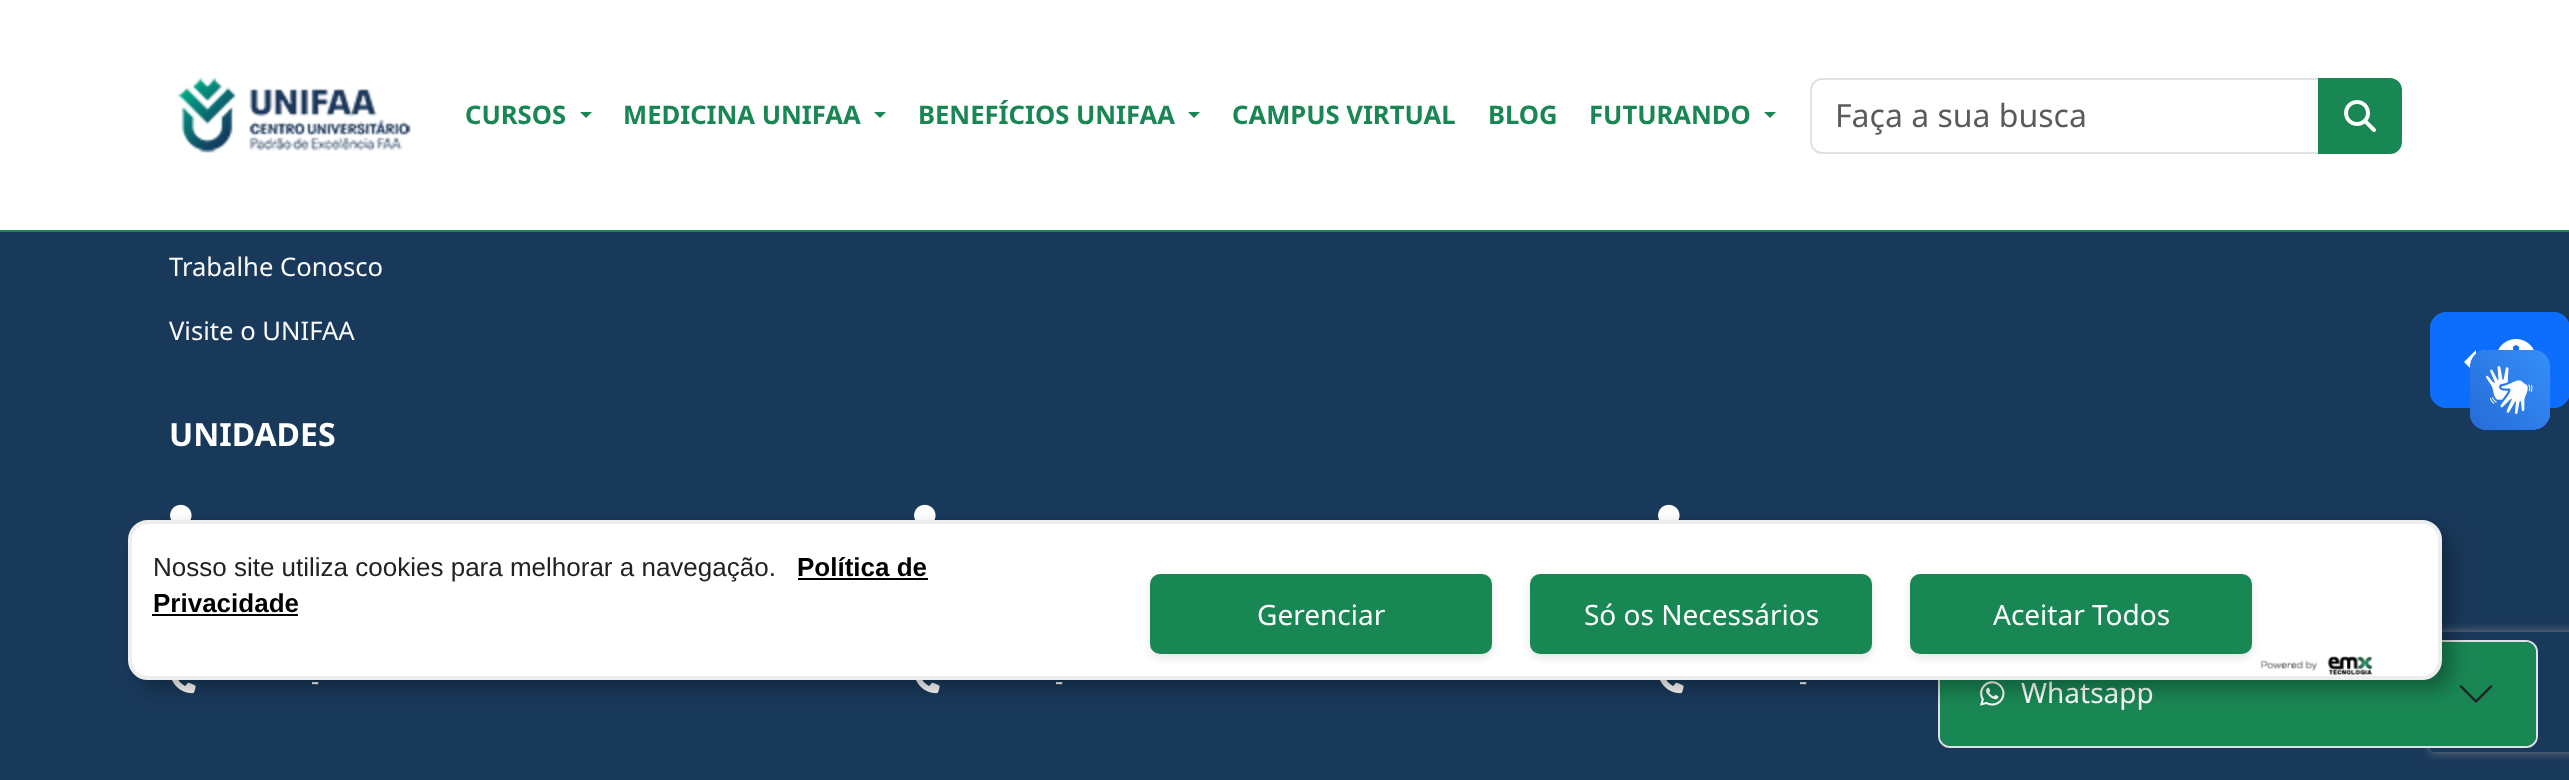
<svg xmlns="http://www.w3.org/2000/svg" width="2569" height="780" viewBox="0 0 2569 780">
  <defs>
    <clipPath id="clip1"><path d="M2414 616H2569V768H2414ZM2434 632H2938C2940 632 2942 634 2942 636V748C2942 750 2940 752 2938 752H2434C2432 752 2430 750 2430 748V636C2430 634 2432 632 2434 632Z" clip-rule="evenodd"/></clipPath>
    <filter id="blur1" x="-50%" y="-200%" width="200%" height="500%"><feGaussianBlur stdDeviation="5"/></filter>
    <filter id="blur2" x="-50%" y="-200%" width="200%" height="500%"><feGaussianBlur stdDeviation="10"/></filter>
    <filter id="blur3" x="-50%" y="-200%" width="200%" height="500%"><feGaussianBlur stdDeviation="4"/></filter>
  </defs>
  <rect width="100%" height="100%" fill="#19395b"/>
  <rect x="0" y="0" width="2569" height="230" fill="#ffffff"/>
  <rect x="0" y="230" width="2569" height="2" fill="#198754"/>
  <image x="177" y="77" width="234" height="76" href="img1.png"/>
  <text x="465" y="124" font-family="Noto Sans" font-size="25.6" font-weight="bold" fill="#198754">CURSOS</text>
  <path d="M580 112H592L586 118Z" fill="#198754"/>
  <text x="623" y="124" font-family="Noto Sans" font-size="25.6" font-weight="bold" fill="#198754">MEDICINA UNIFAA</text>
  <path d="M874 112H886L880 118Z" fill="#198754"/>
  <text x="918" y="124" font-family="Noto Sans" font-size="25.6" font-weight="bold" fill="#198754">BENEFÍCIOS UNIFAA</text>
  <path d="M1188 112H1200L1194 118Z" fill="#198754"/>
  <text x="1232" y="124" font-family="Noto Sans" font-size="25.6" font-weight="bold" fill="#198754">CAMPUS VIRTUAL</text>
  <text x="1488" y="124" font-family="Noto Sans" font-size="25.6" font-weight="bold" fill="#198754">BLOG</text>
  <text x="1589" y="124" font-family="Noto Sans" font-size="25.6" font-weight="bold" fill="#198754">FUTURANDO</text>
  <path d="M1764 112H1776L1770 118Z" fill="#198754"/>
  <path d="M1822 79H2319V153H1822C1816 153 1811 148 1811 142V90C1811 84 1816 79 1822 79Z" fill="none" stroke="#dee2e6" stroke-width="2"/>
  <text x="1835" y="127" font-family="Noto Sans" font-size="32" fill="#595c5f">Faça a sua busca</text>
  <path d="M2319 79H2390C2396 79 2401 84 2401 90V142C2401 148 2396 153 2390 153H2319Z" fill="#198754" stroke="#198754" stroke-width="2"/>
  <image x="2344" y="100" width="32" height="32" href="img2.png"/>
  <text x="169" y="276" font-family="Noto Sans" font-size="25.6" fill="#f9f9f9">Trabalhe Conosco</text>
  <text x="169" y="340" font-family="Noto Sans" font-size="25.6" fill="#f9f9f9">Visite o UNIFAA</text>
  <text x="169" y="446" font-family="Noto Sans" font-size="32" font-weight="bold" fill="#ffffff">UNIDADES</text>
  <image x="170" y="504" width="22" height="16" href="img3.png"/>
  <image x="172" y="680" width="24" height="14" href="img4.png"/>
  <text x="311" y="690" font-family="Noto Sans" font-size="25.6" fill="#ffffff">-</text>
  <image x="914" y="504" width="22" height="16" href="img3.png"/>
  <image x="916" y="680" width="24" height="14" href="img4.png"/>
  <text x="1055" y="690" font-family="Noto Sans" font-size="25.6" fill="#ffffff">-</text>
  <image x="1658" y="504" width="22" height="16" href="img3.png"/>
  <image x="1660" y="680" width="24" height="14" href="img4.png"/>
  <text x="1799" y="690" font-family="Noto Sans" font-size="25.6" fill="#ffffff">-</text>
  <rect x="2431" y="313" width="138" height="94" rx="15" fill="#0d6efd" stroke="#0d6efd" stroke-width="2"/>
  <image x="2498" y="339" width="37" height="12" href="img5.png"/>
  <path d="M2476 350V374L2464 362Z" fill="#ffffff"/>
  <g clip-path="url(#clip1)">
    <rect x="2430" y="632" width="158" height="120" rx="4" fill="#808080" filter="url(#blur1)"/>
  </g>
  <rect x="1939" y="641" width="598" height="106" rx="11" fill="none" stroke="#dee2e6" stroke-width="2"/>
  <rect x="1940" y="642" width="596" height="104" rx="10" fill="#198754"/>
  <image x="1980" y="681" width="25" height="25" href="img6.png"/>
  <text x="2021" y="703" font-family="Noto Sans" font-size="28" fill="#ffffff">Whatsapp</text>
  <image x="2459" y="685" width="34" height="18" href="img7.png"/>
  <image x="2470" y="350" width="80" height="80" href="img8.png"/>
  <image x="2470" y="350" width="80" height="80" href="img9.png"/>
  <rect x="138" y="530" width="2314" height="160" rx="20" fill="#000000" fill-opacity="0.3" filter="url(#blur2)"/>
  <rect x="130" y="522" width="2310" height="156" rx="18" fill="#ffffff" stroke="#eeeeee" stroke-width="4"/>
  <text x="153" y="576" font-family="Liberation Sans" font-size="26" fill="#222222">Nosso site utiliza cookies para melhorar a navegação.</text>
  <text x="797" y="576" font-family="Liberation Sans" font-size="26" font-weight="bold" fill="#000000">Política de</text>
  <rect x="798" y="578" width="130" height="2" fill="#000000"/>
  <text x="153" y="612" font-family="Liberation Sans" font-size="26" font-weight="bold" fill="#000000">Privacidade</text>
  <rect x="152" y="614" width="146" height="2" fill="#000000"/>
  <rect x="1150" y="578" width="342" height="80" rx="10" fill="#000000" fill-opacity="0.1" filter="url(#blur3)"/>
  <rect x="1150" y="574" width="342" height="80" rx="10" fill="#198754"/>
  <text x="1257" y="625" font-family="Noto Sans" font-size="28" fill="#ffffff">Gerenciar</text>
  <rect x="1530" y="578" width="342" height="80" rx="10" fill="#000000" fill-opacity="0.1" filter="url(#blur3)"/>
  <rect x="1530" y="574" width="342" height="80" rx="10" fill="#198754"/>
  <text x="1584" y="625" font-family="Noto Sans" font-size="28" fill="#ffffff">Só os Necessários</text>
  <image x="2260" y="656" width="113" height="19" href="img10.png"/>
  <rect x="1910" y="578" width="342" height="80" rx="10" fill="#000000" fill-opacity="0.1" filter="url(#blur3)"/>
  <rect x="1910" y="574" width="342" height="80" rx="10" fill="#198754"/>
  <text x="1993" y="625" font-family="Noto Sans" font-size="28" fill="#ffffff">Aceitar Todos</text>
</svg>
